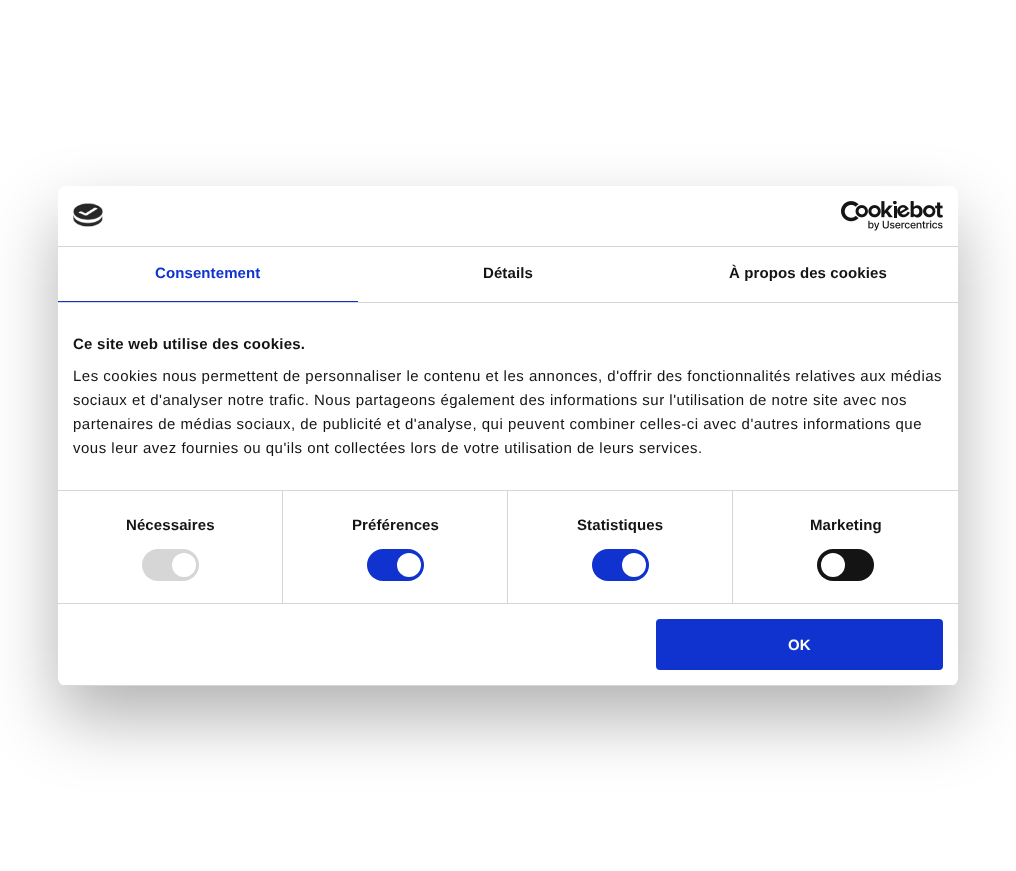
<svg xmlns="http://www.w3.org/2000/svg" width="1016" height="871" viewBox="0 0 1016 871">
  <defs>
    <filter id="blur1" x="-50%" y="-200%" width="200%" height="500%"><feGaussianBlur stdDeviation="34"/></filter>
    <clipPath id="clip1"><rect x="58" y="186" width="900" height="500" rx="8"/></clipPath>
  </defs>
  <rect width="100%" height="100%" fill="#ffffff"/>
  <rect x="58" y="218" width="900" height="500" rx="8" fill="#000000" fill-opacity="0.3" filter="url(#blur1)"/>
  <rect x="58" y="186" width="900" height="500" rx="8" fill="#ffffff"/>
  <rect x="58" y="246" width="900" height="1" fill="#d6d6d6"/>
  <image x="73" y="203" width="30" height="24" href="img1.png"/>
  <image x="841" y="201" width="102" height="30" href="img2.png"/>
  <rect x="58" y="302" width="900" height="1" fill="#d6d6d6"/>
  <rect x="58" y="301" width="300" height="1" fill="#1032cf"/>
  <text x="155" y="278" font-family="Liberation Sans" font-size="15" font-weight="bold" letter-spacing="0.1" fill="#1032cf">Consentement</text>
  <text x="483" y="278" font-family="Liberation Sans" font-size="15" font-weight="bold" letter-spacing="0.1" fill="#141414">Détails</text>
  <text x="729" y="278" font-family="Liberation Sans" font-size="15" font-weight="bold" letter-spacing="0.1" fill="#141414">À propos des cookies</text>
  <rect x="58" y="490" width="900" height="1" fill="#d6d6d6"/>
  <text x="73" y="349" font-family="Liberation Sans" font-size="15" font-weight="bold" letter-spacing="0.25" fill="#141414">Ce site web utilise des cookies.</text>
  <text x="73" y="381" font-family="Liberation Sans" font-size="15" letter-spacing="0.5" fill="#141414">Les cookies nous permettent de personnaliser le contenu et les annonces, d'offrir des fonctionnalités relatives aux médias</text>
  <text x="73" y="405" font-family="Liberation Sans" font-size="15" letter-spacing="0.5" fill="#141414">sociaux et d'analyser notre trafic. Nous partageons également des informations sur l'utilisation de notre site avec nos</text>
  <text x="73" y="429" font-family="Liberation Sans" font-size="15" letter-spacing="0.5" fill="#141414">partenaires de médias sociaux, de publicité et d'analyse, qui peuvent combiner celles-ci avec d'autres informations que</text>
  <text x="73" y="453" font-family="Liberation Sans" font-size="15" letter-spacing="0.5" fill="#141414">vous leur avez fournies ou qu'ils ont collectées lors de votre utilisation de leurs services.</text>
  <rect x="58" y="603" width="900" height="1" fill="#d6d6d6"/>
  <rect x="282" y="491" width="1" height="112" fill="#d6d6d6"/>
  <text x="126" y="530" font-family="Liberation Sans" font-size="15" font-weight="bold" letter-spacing="0.1" fill="#141414">Nécessaires</text>
  <rect x="142" y="549" width="57" height="32" rx="16" fill="#d6d6d6"/>
  <circle cx="184" cy="565" r="12" fill="#ffffff"/>
  <rect x="507" y="491" width="1" height="112" fill="#d6d6d6"/>
  <text x="352" y="530" font-family="Liberation Sans" font-size="15" font-weight="bold" letter-spacing="0.1" fill="#141414">Préférences</text>
  <rect x="367" y="549" width="57" height="32" rx="16" fill="#1032cf"/>
  <circle cx="409" cy="565" r="12" fill="#ffffff"/>
  <rect x="732" y="491" width="1" height="112" fill="#d6d6d6"/>
  <text x="577" y="530" font-family="Liberation Sans" font-size="15" font-weight="bold" letter-spacing="0.1" fill="#141414">Statistiques</text>
  <rect x="592" y="549" width="57" height="32" rx="16" fill="#1032cf"/>
  <circle cx="634" cy="565" r="12" fill="#ffffff"/>
  <text x="810" y="530" font-family="Liberation Sans" font-size="15" font-weight="bold" letter-spacing="0.1" fill="#141414">Marketing</text>
  <rect x="817" y="549" width="57" height="32" rx="16" fill="#141414"/>
  <circle cx="833" cy="565" r="12" fill="#ffffff"/>
  <g clip-path="url(#clip1)">
    <rect x="58" y="685" width="900" height="1" fill="#d6d6d6"/>
  </g>
  <rect x="657" y="620" width="285" height="49" rx="3" fill="#1032cf" stroke="#1032cf" stroke-width="2"/>
  <text x="788" y="650" font-family="Liberation Sans" font-size="15" font-weight="bold" fill="#ffffff">OK</text>
</svg>
